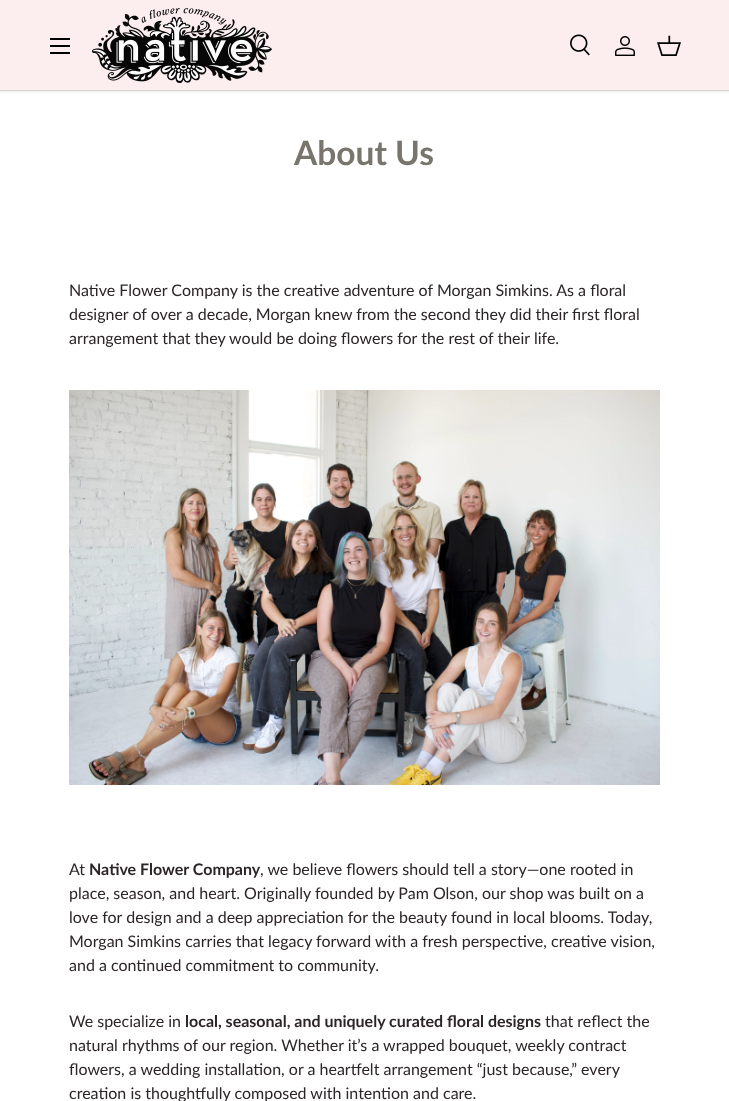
<svg xmlns="http://www.w3.org/2000/svg" width="729" height="1101" viewBox="0 0 729 1101">
  <defs>
    <filter id="blur1" x="-50%" y="-200%" width="200%" height="500%"><feGaussianBlur stdDeviation="1.5"/></filter>
  </defs>
  <rect width="100%" height="100%" fill="#ffffff"/>
  <rect x="-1" y="-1" width="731" height="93" fill="#000000" fill-opacity="0.08" filter="url(#blur1)"/>
  <rect x="0" y="0" width="729" height="90" fill="#fcedee"/>
  <rect x="50" y="38" width="20" height="2" fill="#000000"/>
  <rect x="50" y="52" width="20" height="2" fill="#000000"/>
  <rect x="50" y="45" width="20" height="2" fill="#000000"/>
  <image x="92" y="8" width="180" height="75" href="img1.png"/>
  <image x="570" y="34" width="20" height="22" href="img2.png"/>
  <image x="615" y="36" width="20" height="20" href="img3.png"/>
  <image x="657" y="35" width="24" height="21" href="img4.png"/>
  <rect x="0" y="90" width="729" height="1" fill="#dbcfcf"/>
  <text x="294" y="165" font-family="Lato" font-size="33.5" font-weight="bold" fill="#78756e">About Us</text>
  <text x="69" y="296" font-family="Lato" font-size="16" fill="#2c2528">Native Flower Company is the creative adventure of Morgan Simkins. As a floral</text>
  <text x="69" y="320" font-family="Lato" font-size="16" fill="#2c2528">designer of over a decade, Morgan knew from the second they did their first floral</text>
  <text x="69" y="344" font-family="Lato" font-size="16" fill="#2c2528">arrangement that they would be doing flowers for the rest of their life.</text>
  <image x="69" y="390" width="591" height="395" href="img5.png"/>
  <text x="69" y="875" font-family="Lato" font-size="16" fill="#2c2528">At</text>
  <text x="89" y="875" font-family="Lato" font-size="16" font-weight="bold" fill="#2c2528">Native Flower Company</text>
  <text x="260" y="875" font-family="Lato" font-size="16" fill="#2c2528">, we believe flowers should tell a story—one rooted in</text>
  <text x="69" y="899" font-family="Lato" font-size="16" fill="#2c2528">place, season, and heart. Originally founded by Pam Olson, our shop was built on a</text>
  <text x="69" y="923" font-family="Lato" font-size="16" fill="#2c2528">love for design and a deep appreciation for the beauty found in local blooms. Today,</text>
  <text x="69" y="947" font-family="Lato" font-size="16" fill="#2c2528">Morgan Simkins carries that legacy forward with a fresh perspective, creative vision,</text>
  <text x="69" y="971" font-family="Lato" font-size="16" fill="#2c2528">and a continued commitment to community.</text>
  <text x="69" y="1027" font-family="Lato" font-size="16" fill="#2c2528">We specialize in</text>
  <text x="185" y="1027" font-family="Lato" font-size="16" font-weight="bold" fill="#2c2528">local, seasonal, and uniquely curated floral designs</text>
  <text x="545" y="1027" font-family="Lato" font-size="16" fill="#2c2528">that reflect the</text>
  <text x="69" y="1051" font-family="Lato" font-size="16" fill="#2c2528">natural rhythms of our region. Whether it’s a wrapped bouquet, weekly contract</text>
  <text x="69" y="1075" font-family="Lato" font-size="16" fill="#2c2528">flowers, a wedding installation, or a heartfelt arrangement “just because,” every</text>
  <text x="69" y="1099" font-family="Lato" font-size="16" fill="#2c2528">creation is thoughtfully composed with intention and care.</text>
</svg>
